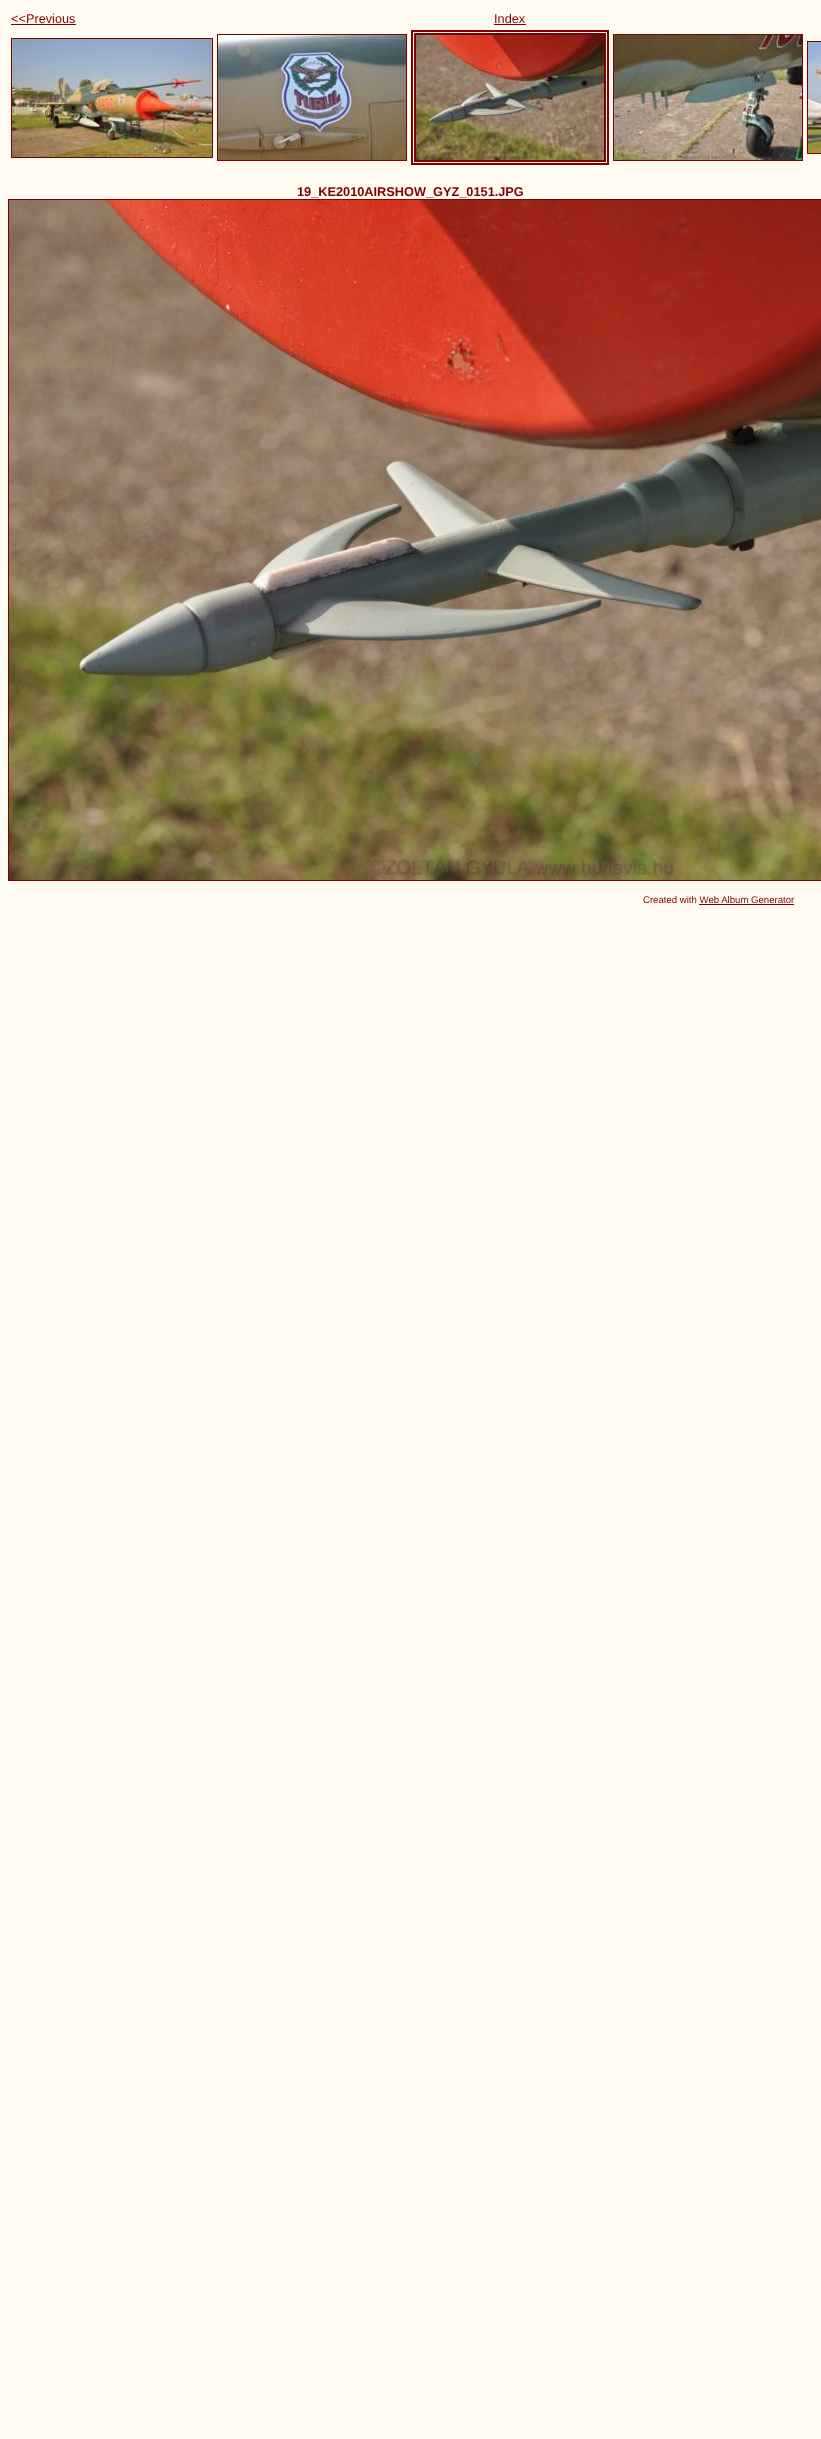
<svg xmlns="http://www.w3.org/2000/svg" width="821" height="2439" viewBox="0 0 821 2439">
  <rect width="100%" height="100%" fill="#fffbf0"/>
  <text x="11" y="23" font-family="Liberation Sans" font-size="12.75" fill="#800000">&lt;&lt;Previous</text>
  <rect x="11" y="24" width="65" height="1" fill="#800000"/>
  <text x="494" y="23" font-family="Liberation Sans" font-size="12.75" fill="#800000">Index</text>
  <rect x="494" y="24" width="32" height="1" fill="#800000"/>
  <rect x="11.5" y="38.5" width="201" height="119" fill="none" stroke="#800000"/>
  <image x="12" y="39" width="200" height="118" href="img1.png"/>
  <rect x="217.5" y="34.5" width="189" height="126" fill="none" stroke="#800000"/>
  <image x="218" y="35" width="188" height="125" href="img2.png"/>
  <rect x="412" y="31" width="196" height="133" fill="none" stroke="#800000" stroke-width="2"/>
  <rect x="415" y="34" width="190" height="127" fill="none" stroke="#800000" stroke-width="2"/>
  <image x="416" y="35" width="188" height="125" href="img3.png"/>
  <rect x="613.5" y="34.5" width="189" height="126" fill="none" stroke="#800000"/>
  <image x="614" y="35" width="188" height="125" href="img4.png"/>
  <rect x="807.5" y="41.5" width="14" height="112" fill="none" stroke="#800000"/>
  <image x="808" y="42" width="13" height="111" href="img5.png"/>
  <text x="297" y="196" font-family="Liberation Sans" font-size="12.75" font-weight="bold" fill="#800000">19_KE2010AIRSHOW_GYZ_0151.JPG</text>
  <rect x="8.5" y="199.5" width="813" height="681" fill="none" stroke="#800000"/>
  <image x="9" y="200" width="812" height="680" href="img6.png"/>
  <text x="643" y="903" font-family="Liberation Sans" font-size="9.6" fill="#800000">Created with Web Album Generator</text>
  <rect x="699" y="904" width="95" height="1" fill="#800000"/>
</svg>
